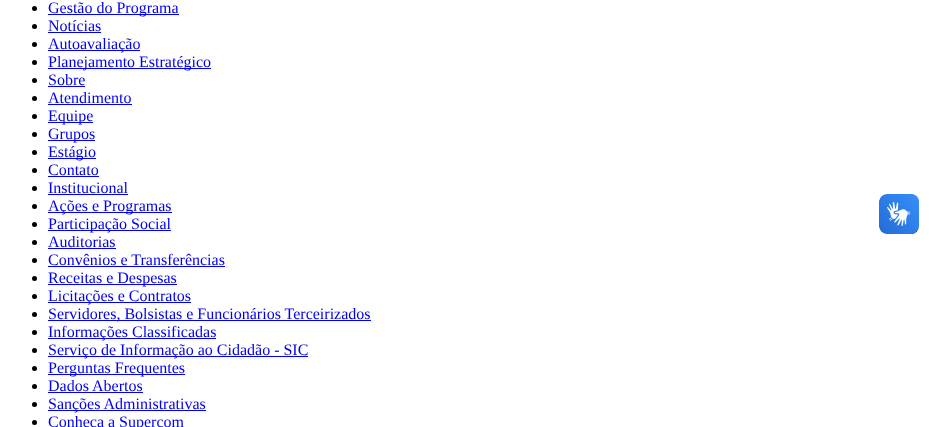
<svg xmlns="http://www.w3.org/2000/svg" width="929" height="427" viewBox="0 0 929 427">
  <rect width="100%" height="100%" fill="#ffffff"/>
  <circle cx="34.5" cy="8.5" r="2.5" fill="#000000"/>
  <rect x="48" y="14" width="131" height="1" fill="#0000ee"/>
  <text x="48" y="13" font-family="Liberation Serif" font-size="16" fill="#0000ee">Gestão do Programa</text>
  <circle cx="34.5" cy="26.5" r="2.5" fill="#000000"/>
  <text x="48" y="31" font-family="Liberation Serif" font-size="16" fill="#0000ee">Notícias</text>
  <rect x="48" y="32" width="53" height="1" fill="#0000ee"/>
  <circle cx="34.5" cy="44.5" r="2.5" fill="#000000"/>
  <rect x="48" y="50" width="92" height="1" fill="#0000ee"/>
  <text x="48" y="49" font-family="Liberation Serif" font-size="16" fill="#0000ee">Autoavaliação</text>
  <circle cx="34.5" cy="62.5" r="2.5" fill="#000000"/>
  <rect x="48" y="68" width="163" height="1" fill="#0000ee"/>
  <text x="48" y="67" font-family="Liberation Serif" font-size="16" fill="#0000ee">Planejamento Estratégico</text>
  <circle cx="34.5" cy="80.5" r="2.5" fill="#000000"/>
  <text x="48" y="85" font-family="Liberation Serif" font-size="16" fill="#0000ee">Sobre</text>
  <rect x="48" y="86" width="37" height="1" fill="#0000ee"/>
  <circle cx="34.5" cy="98.5" r="2.5" fill="#000000"/>
  <text x="48" y="103" font-family="Liberation Serif" font-size="16" fill="#0000ee">Atendimento</text>
  <rect x="48" y="104" width="84" height="1" fill="#0000ee"/>
  <circle cx="34.5" cy="116.5" r="2.5" fill="#000000"/>
  <rect x="48" y="122" width="45" height="1" fill="#0000ee"/>
  <text x="48" y="121" font-family="Liberation Serif" font-size="16" fill="#0000ee">Equipe</text>
  <circle cx="34.5" cy="134.5" r="2.5" fill="#000000"/>
  <rect x="48" y="140" width="47" height="1" fill="#0000ee"/>
  <text x="48" y="139" font-family="Liberation Serif" font-size="16" fill="#0000ee">Grupos</text>
  <circle cx="34.5" cy="152.5" r="2.5" fill="#000000"/>
  <rect x="48" y="158" width="48" height="1" fill="#0000ee"/>
  <text x="48" y="157" font-family="Liberation Serif" font-size="16" fill="#0000ee">Estágio</text>
  <circle cx="34.5" cy="170.5" r="2.5" fill="#000000"/>
  <text x="48" y="175" font-family="Liberation Serif" font-size="16" fill="#0000ee">Contato</text>
  <rect x="48" y="176" width="51" height="1" fill="#0000ee"/>
  <circle cx="34.5" cy="188.5" r="2.5" fill="#000000"/>
  <text x="48" y="193" font-family="Liberation Serif" font-size="16" fill="#0000ee">Institucional</text>
  <rect x="48" y="194" width="80" height="1" fill="#0000ee"/>
  <circle cx="34.5" cy="206.5" r="2.5" fill="#000000"/>
  <rect x="48" y="212" width="124" height="1" fill="#0000ee"/>
  <text x="48" y="211" font-family="Liberation Serif" font-size="16" fill="#0000ee">Ações e Programas</text>
  <circle cx="34.5" cy="224.5" r="2.5" fill="#000000"/>
  <rect x="48" y="230" width="123" height="1" fill="#0000ee"/>
  <text x="48" y="229" font-family="Liberation Serif" font-size="16" fill="#0000ee">Participação Social</text>
  <circle cx="34.5" cy="242.5" r="2.5" fill="#000000"/>
  <text x="48" y="247" font-family="Liberation Serif" font-size="16" fill="#0000ee">Auditorias</text>
  <rect x="48" y="248" width="68" height="1" fill="#0000ee"/>
  <circle cx="34.5" cy="260.5" r="2.5" fill="#000000"/>
  <text x="48" y="265" font-family="Liberation Serif" font-size="16" fill="#0000ee">Convênios e Transferências</text>
  <rect x="48" y="266" width="177" height="1" fill="#0000ee"/>
  <circle cx="34.5" cy="278.5" r="2.5" fill="#000000"/>
  <rect x="48" y="284" width="129" height="1" fill="#0000ee"/>
  <text x="48" y="283" font-family="Liberation Serif" font-size="16" fill="#0000ee">Receitas e Despesas</text>
  <circle cx="34.5" cy="296.5" r="2.5" fill="#000000"/>
  <rect x="48" y="302" width="143" height="1" fill="#0000ee"/>
  <text x="48" y="301" font-family="Liberation Serif" font-size="16" fill="#0000ee">Licitações e Contratos</text>
  <circle cx="34.5" cy="314.5" r="2.5" fill="#000000"/>
  <rect x="48" y="320" width="323" height="1" fill="#0000ee"/>
  <text x="48" y="319" font-family="Liberation Serif" font-size="16" fill="#0000ee">Servidores, Bolsistas e Funcionários Terceirizados</text>
  <circle cx="34.5" cy="332.5" r="2.5" fill="#000000"/>
  <rect x="48" y="338" width="168" height="1" fill="#0000ee"/>
  <text x="48" y="337" font-family="Liberation Serif" font-size="16" fill="#0000ee">Informações Classificadas</text>
  <circle cx="34.5" cy="350.5" r="2.5" fill="#000000"/>
  <rect x="48" y="356" width="260" height="1" fill="#0000ee"/>
  <text x="48" y="355" font-family="Liberation Serif" font-size="16" fill="#0000ee">Serviço de Informação ao Cidadão - SIC</text>
  <circle cx="34.5" cy="368.5" r="2.5" fill="#000000"/>
  <rect x="48" y="374" width="137" height="1" fill="#0000ee"/>
  <text x="48" y="373" font-family="Liberation Serif" font-size="16" fill="#0000ee">Perguntas Frequentes</text>
  <circle cx="34.5" cy="386.5" r="2.5" fill="#000000"/>
  <text x="48" y="391" font-family="Liberation Serif" font-size="16" fill="#0000ee">Dados Abertos</text>
  <rect x="48" y="392" width="95" height="1" fill="#0000ee"/>
  <circle cx="34.5" cy="404.5" r="2.5" fill="#000000"/>
  <rect x="48" y="410" width="158" height="1" fill="#0000ee"/>
  <text x="48" y="409" font-family="Liberation Serif" font-size="16" fill="#0000ee">Sanções Administrativas</text>
  <circle cx="34.5" cy="422.5" r="2.5" fill="#000000"/>
  <text x="48" y="427" font-family="Liberation Serif" font-size="16" fill="#0000ee">Conheça a Supercom</text>
  <image x="879" y="194" width="40" height="40" href="img1.png"/>
  <image x="879" y="194" width="40" height="40" href="img2.png"/>
</svg>
